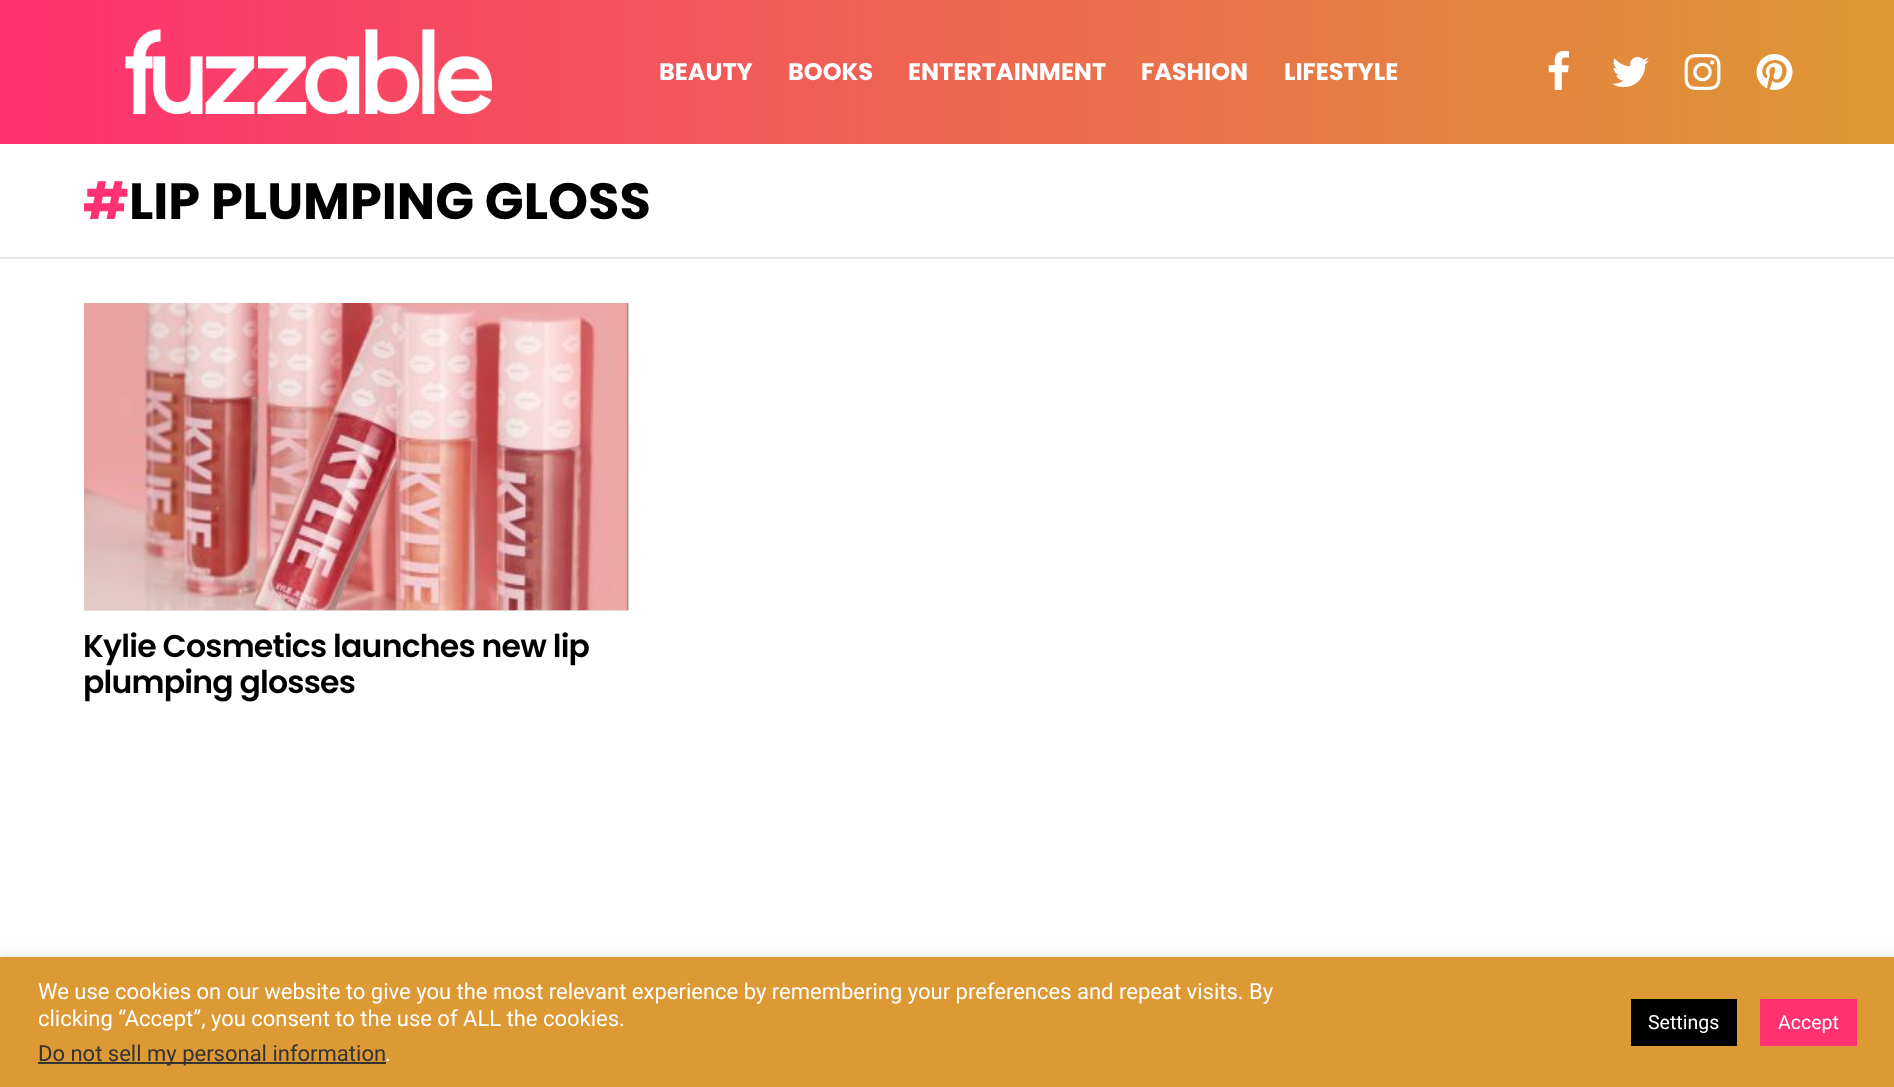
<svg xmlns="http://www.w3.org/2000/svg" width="1894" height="1087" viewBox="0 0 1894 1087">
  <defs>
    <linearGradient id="g1" gradientUnits="userSpaceOnUse" x1="0" y1="72" x2="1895" y2="72"><stop offset="0" stop-color="#ff3170"/><stop offset="1" stop-color="#dd9933"/></linearGradient>
    <filter id="blur1" x="-50%" y="-200%" width="200%" height="500%"><feGaussianBlur stdDeviation="7.5"/></filter>
  </defs>
  <rect width="100%" height="100%" fill="#ffffff"/>
  <rect x="0" y="0" width="1894" height="144" fill="url(#g1)"/>
  <image x="125" y="29" width="367" height="85" href="img1.png"/>
  <text x="659" y="80" font-family="Poppins" font-size="24" font-weight="bold" fill="#ffffff">BEAUTY</text>
  <text x="788" y="80" font-family="Poppins" font-size="24" font-weight="bold" fill="#ffffff">BOOKS</text>
  <text x="908" y="80" font-family="Poppins" font-size="24" font-weight="bold" fill="#ffffff">ENTERTAINMENT</text>
  <text x="1141" y="80" font-family="Poppins" font-size="24" font-weight="bold" fill="#ffffff">FASHION</text>
  <text x="1284" y="80" font-family="Poppins" font-size="24" font-weight="bold" fill="#ffffff">LIFESTYLE</text>
  <image x="1548" y="51" width="21" height="39" href="img2.png"/>
  <image x="1612" y="57" width="37" height="30" href="img3.png"/>
  <image x="1684" y="54" width="37" height="36" href="img4.png"/>
  <image x="1756" y="54" width="37" height="36" href="img5.png"/>
  <text x="83" y="219" font-family="Poppins" font-size="51" font-weight="bold" fill="#ff3170">#</text>
  <text x="129" y="219" font-family="Poppins" font-size="51" font-weight="bold" fill="#000000">LIP PLUMPING GLOSS</text>
  <rect x="0" y="257" width="1894" height="2" fill="#e6e6e6"/>
  <rect x="84" y="303" width="545" height="308" fill="#e6e6e6"/>
  <image x="84" y="303" width="545" height="308" href="img6.png"/>
  <text x="83" y="657" font-family="Poppins" font-size="31.5" font-weight="600" letter-spacing="-0.8" fill="#000000">Kylie Cosmetics launches new lip</text>
  <text x="83" y="693" font-family="Poppins" font-size="31.5" font-weight="600" letter-spacing="-0.8" fill="#000000">plumping glosses</text>
  <rect x="0" y="956" width="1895" height="130" fill="#acabab" fill-opacity="0.3" filter="url(#blur1)"/>
  <rect x="0" y="957" width="1894" height="130" fill="#dd9933"/>
  <text x="38" y="999" font-family="Roboto" font-size="22" fill="#ffffff">We use cookies on our website to give you the most relevant experience by remembering your preferences and repeat visits. By</text>
  <text x="38" y="1026" font-family="Roboto" font-size="22" fill="#ffffff">clicking “Accept”, you consent to the use of ALL the cookies.</text>
  <rect x="38" y="1062" width="348" height="2" fill="#333333"/>
  <text x="38" y="1061" font-family="Roboto" font-size="22" fill="#333333">Do not sell my personal information</text>
  <text x="385" y="1061" font-family="Roboto" font-size="22" fill="#ffffff">.</text>
  <rect x="1631" y="999" width="106" height="47" fill="#000000"/>
  <text x="1648" y="1029" font-family="Roboto" font-size="19.5" fill="#ffffff">Settings</text>
  <rect x="1760" y="999" width="97" height="47" fill="#ff3170"/>
  <text x="1778" y="1029" font-family="Roboto" font-size="19.5" fill="#ffffff">Accept</text>
</svg>
